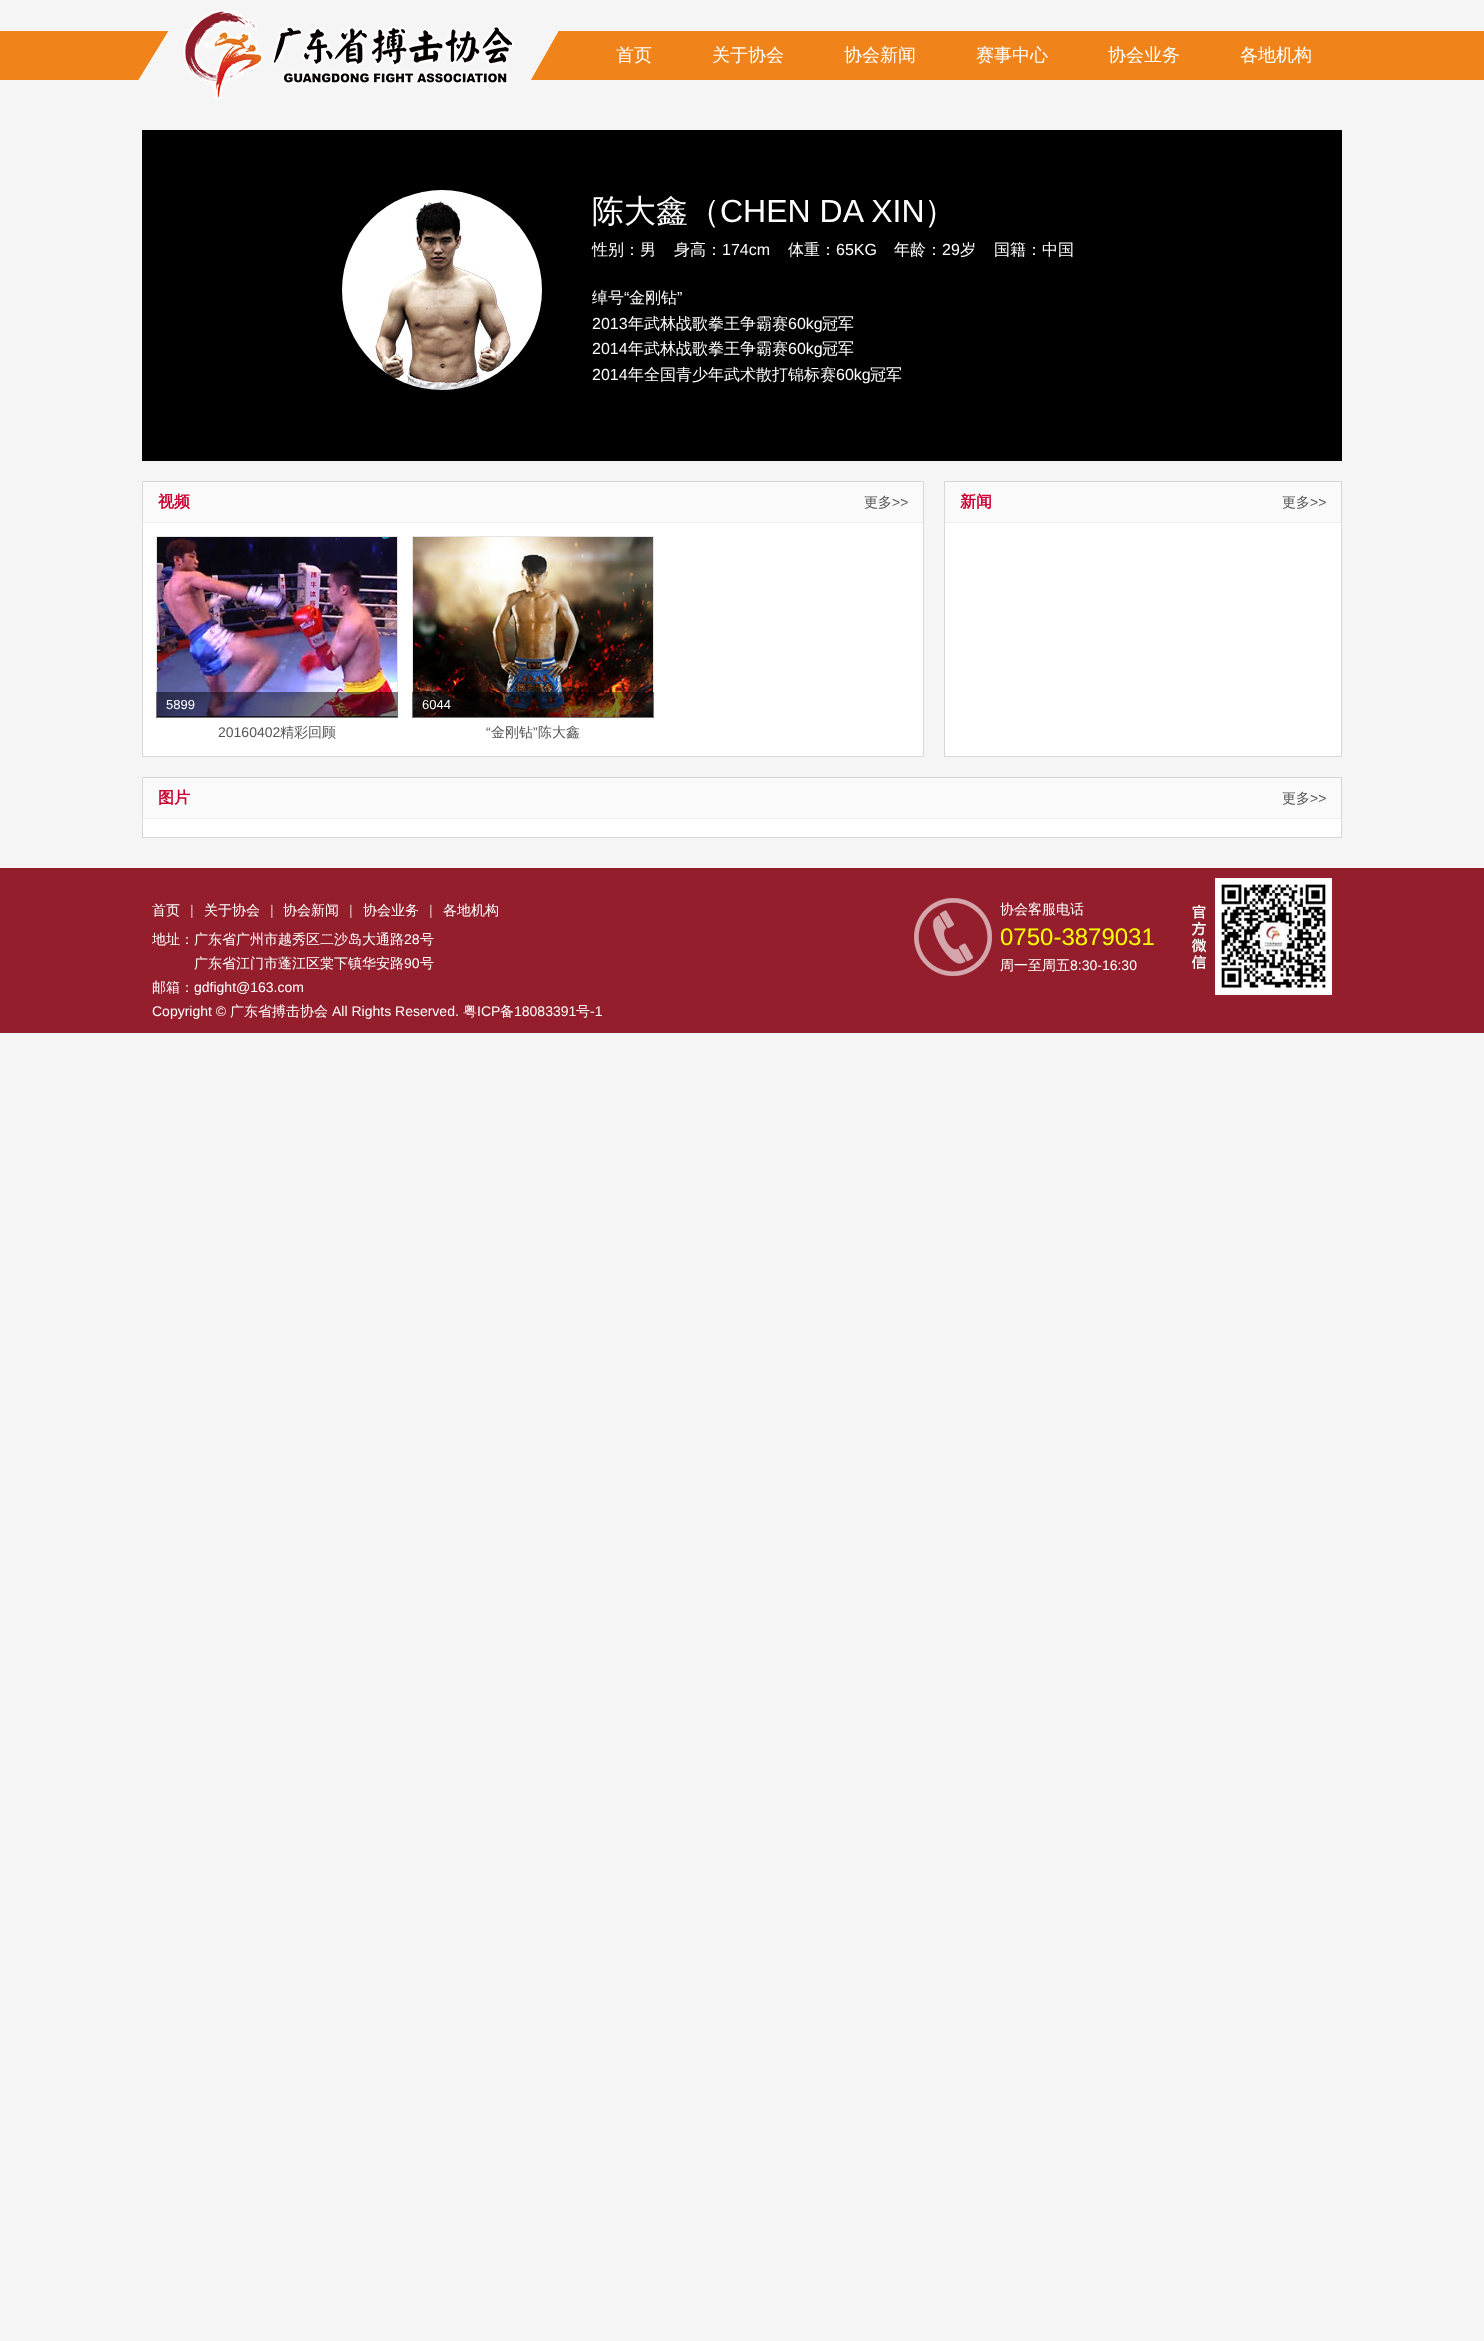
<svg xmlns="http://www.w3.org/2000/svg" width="1484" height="2341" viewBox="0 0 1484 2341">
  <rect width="100%" height="100%" fill="#f5f5f5"/>
  <image x="0" y="31" width="1484" height="49" href="img1.png"/>
  <image x="183" y="10" width="331" height="89" href="img2.png"/>
  <text x="616" y="61" font-family="WenQuanYi Zen Hei" font-size="18" font-weight="500" fill="#ffffff">首页</text>
  <text x="712" y="61" font-family="WenQuanYi Zen Hei" font-size="18" font-weight="500" fill="#ffffff">关于协会</text>
  <text x="844" y="61" font-family="WenQuanYi Zen Hei" font-size="18" font-weight="500" fill="#ffffff">协会新闻</text>
  <text x="976" y="61" font-family="WenQuanYi Zen Hei" font-size="18" font-weight="500" fill="#ffffff">赛事中心</text>
  <text x="1108" y="61" font-family="WenQuanYi Zen Hei" font-size="18" font-weight="500" fill="#ffffff">协会业务</text>
  <text x="1240" y="61" font-family="WenQuanYi Zen Hei" font-size="18" font-weight="500" fill="#ffffff">各地机构</text>
  <rect x="142" y="130" width="1200" height="331" fill="#000000"/>
  <image x="342" y="190" width="200" height="200" href="img3.png"/>
  <text x="592" y="222" font-family="WenQuanYi Zen Hei" font-size="32" font-weight="500" fill="#ffffff">陈大鑫（</text>
  <text x="720" y="222" font-family="Liberation Sans" font-size="32" fill="#ffffff">CHEN DA XIN</text>
  <text x="924" y="222" font-family="WenQuanYi Zen Hei" font-size="32" font-weight="500" fill="#ffffff">）</text>
  <text x="592" y="255" font-family="WenQuanYi Zen Hei" font-size="16" font-weight="500" fill="#ffffff">性别：男</text>
  <text x="674" y="255" font-family="WenQuanYi Zen Hei" font-size="16" font-weight="500" fill="#ffffff">身高：</text>
  <text x="722" y="255" font-family="Liberation Sans" font-size="16" fill="#ffffff">174cm</text>
  <text x="788" y="255" font-family="WenQuanYi Zen Hei" font-size="16" font-weight="500" fill="#ffffff">体重：</text>
  <text x="836" y="255" font-family="Liberation Sans" font-size="16" fill="#ffffff">65KG</text>
  <text x="894" y="255" font-family="WenQuanYi Zen Hei" font-size="16" font-weight="500" fill="#ffffff">年龄：</text>
  <text x="942" y="255" font-family="Liberation Sans" font-size="16" fill="#ffffff">29</text>
  <text x="960" y="255" font-family="WenQuanYi Zen Hei" font-size="16" font-weight="500" fill="#ffffff">岁</text>
  <text x="994" y="255" font-family="WenQuanYi Zen Hei" font-size="16" font-weight="500" fill="#ffffff">国籍：中国</text>
  <text x="592" y="303" font-family="WenQuanYi Zen Hei" font-size="16" font-weight="500" fill="#ffffff">绰号</text>
  <text x="624" y="303" font-family="Liberation Sans" font-size="16" fill="#ffffff">“</text>
  <text x="629" y="303" font-family="WenQuanYi Zen Hei" font-size="16" font-weight="500" fill="#ffffff">金刚钻</text>
  <text x="677" y="303" font-family="Liberation Sans" font-size="16" fill="#ffffff">”</text>
  <text x="592" y="329" font-family="Liberation Sans" font-size="16" fill="#ffffff">2013</text>
  <text x="628" y="329" font-family="WenQuanYi Zen Hei" font-size="16" font-weight="500" fill="#ffffff">年武林战歌拳王争霸赛</text>
  <text x="788" y="329" font-family="Liberation Sans" font-size="16" fill="#ffffff">60kg</text>
  <text x="822" y="329" font-family="WenQuanYi Zen Hei" font-size="16" font-weight="500" fill="#ffffff">冠军</text>
  <text x="592" y="354" font-family="Liberation Sans" font-size="16" fill="#ffffff">2014</text>
  <text x="628" y="354" font-family="WenQuanYi Zen Hei" font-size="16" font-weight="500" fill="#ffffff">年武林战歌拳王争霸赛</text>
  <text x="788" y="354" font-family="Liberation Sans" font-size="16" fill="#ffffff">60kg</text>
  <text x="822" y="354" font-family="WenQuanYi Zen Hei" font-size="16" font-weight="500" fill="#ffffff">冠军</text>
  <text x="592" y="380" font-family="Liberation Sans" font-size="16" fill="#ffffff">2014</text>
  <text x="628" y="380" font-family="WenQuanYi Zen Hei" font-size="16" font-weight="500" fill="#ffffff">年全国青少年武术散打锦标赛</text>
  <text x="836" y="380" font-family="Liberation Sans" font-size="16" fill="#ffffff">60kg</text>
  <text x="870" y="380" font-family="WenQuanYi Zen Hei" font-size="16" font-weight="500" fill="#ffffff">冠军</text>
  <rect x="143" y="523" width="780" height="233" fill="#ffffff"/>
  <rect x="142.5" y="481.5" width="781" height="275" fill="none" stroke="#d8d8d8"/>
  <rect x="143" y="482" width="780" height="40" fill="#fafafa"/>
  <rect x="143" y="522" width="780" height="1" fill="#ededed"/>
  <text x="158" y="507" font-family="WenQuanYi Zen Hei" font-size="16" font-weight="bold" fill="#cc0033">视频</text>
  <text x="864" y="507" font-family="WenQuanYi Zen Hei" font-size="14" font-weight="500" fill="#555555">更多</text>
  <text x="892" y="507" font-family="Liberation Sans" font-size="14" fill="#555555">&gt;&gt;</text>
  <rect x="156.5" y="536.5" width="241" height="181" fill="none" stroke="#e5e5e5"/>
  <image x="157" y="537" width="240" height="180" href="img4.png"/>
  <rect x="156" y="692" width="242" height="26" fill="#000000" fill-opacity="0.5"/>
  <text x="166" y="709" font-family="Liberation Sans" font-size="13" fill="#ffffff">5899</text>
  <text x="218" y="737" font-family="Liberation Sans" font-size="14" fill="#555555">20160402</text>
  <text x="280" y="737" font-family="WenQuanYi Zen Hei" font-size="14" font-weight="500" fill="#555555">精彩回顾</text>
  <rect x="412.5" y="536.5" width="241" height="181" fill="none" stroke="#e5e5e5"/>
  <image x="413" y="537" width="240" height="180" href="img5.png"/>
  <rect x="412" y="692" width="242" height="26" fill="#000000" fill-opacity="0.5"/>
  <text x="422" y="709" font-family="Liberation Sans" font-size="13" fill="#ffffff">6044</text>
  <text x="486" y="737" font-family="Liberation Sans" font-size="14" fill="#555555">“</text>
  <text x="491" y="737" font-family="WenQuanYi Zen Hei" font-size="14" font-weight="500" fill="#555555">金刚钻</text>
  <text x="533" y="737" font-family="Liberation Sans" font-size="14" fill="#555555">”</text>
  <text x="538" y="737" font-family="WenQuanYi Zen Hei" font-size="14" font-weight="500" fill="#555555">陈大鑫</text>
  <rect x="945" y="523" width="396" height="233" fill="#ffffff"/>
  <rect x="944.5" y="481.5" width="397" height="275" fill="none" stroke="#d8d8d8"/>
  <rect x="945" y="482" width="396" height="40" fill="#fafafa"/>
  <rect x="945" y="522" width="396" height="1" fill="#ededed"/>
  <text x="960" y="507" font-family="WenQuanYi Zen Hei" font-size="16" font-weight="bold" fill="#cc0033">新闻</text>
  <text x="1282" y="507" font-family="WenQuanYi Zen Hei" font-size="14" font-weight="500" fill="#555555">更多</text>
  <text x="1310" y="507" font-family="Liberation Sans" font-size="14" fill="#555555">&gt;&gt;</text>
  <rect x="143" y="819" width="1198" height="18" fill="#ffffff"/>
  <rect x="142.5" y="777.5" width="1199" height="60" fill="none" stroke="#d8d8d8"/>
  <rect x="143" y="778" width="1198" height="40" fill="#fafafa"/>
  <rect x="143" y="818" width="1198" height="1" fill="#ededed"/>
  <text x="158" y="803" font-family="WenQuanYi Zen Hei" font-size="16" font-weight="bold" fill="#cc0033">图片</text>
  <text x="1282" y="803" font-family="WenQuanYi Zen Hei" font-size="14" font-weight="500" fill="#555555">更多</text>
  <text x="1310" y="803" font-family="Liberation Sans" font-size="14" fill="#555555">&gt;&gt;</text>
  <rect x="0" y="868" width="1484" height="165" fill="#941e2c"/>
  <text x="152" y="915" font-family="WenQuanYi Zen Hei" font-size="14" font-weight="500" fill="#ffffff">首页</text>
  <text x="190" y="915" font-family="Liberation Sans" font-size="14" fill="#e0bfc3">|</text>
  <text x="204" y="915" font-family="WenQuanYi Zen Hei" font-size="14" font-weight="500" fill="#ffffff">关于协会</text>
  <text x="270" y="915" font-family="Liberation Sans" font-size="14" fill="#e0bfc3">|</text>
  <text x="283" y="915" font-family="WenQuanYi Zen Hei" font-size="14" font-weight="500" fill="#ffffff">协会新闻</text>
  <text x="349" y="915" font-family="Liberation Sans" font-size="14" fill="#e0bfc3">|</text>
  <text x="363" y="915" font-family="WenQuanYi Zen Hei" font-size="14" font-weight="500" fill="#ffffff">协会业务</text>
  <text x="429" y="915" font-family="Liberation Sans" font-size="14" fill="#e0bfc3">|</text>
  <text x="443" y="915" font-family="WenQuanYi Zen Hei" font-size="14" font-weight="500" fill="#ffffff">各地机构</text>
  <text x="152" y="944" font-family="WenQuanYi Zen Hei" font-size="14" font-weight="500" fill="#ffffff">地址：广东省广州市越秀区二沙岛大通路</text>
  <text x="404" y="944" font-family="Liberation Sans" font-size="14" fill="#ffffff">28</text>
  <text x="420" y="944" font-family="WenQuanYi Zen Hei" font-size="14" font-weight="500" fill="#ffffff">号</text>
  <text x="194" y="968" font-family="WenQuanYi Zen Hei" font-size="14" font-weight="500" fill="#ffffff">广东省江门市蓬江区棠下镇华安路</text>
  <text x="404" y="968" font-family="Liberation Sans" font-size="14" fill="#ffffff">90</text>
  <text x="420" y="968" font-family="WenQuanYi Zen Hei" font-size="14" font-weight="500" fill="#ffffff">号</text>
  <text x="152" y="992" font-family="WenQuanYi Zen Hei" font-size="14" font-weight="500" fill="#ffffff">邮箱：</text>
  <text x="194" y="992" font-family="Liberation Sans" font-size="14" fill="#ffffff">gdfight@163.com</text>
  <text x="152" y="1016" font-family="Liberation Sans" font-size="14" fill="#ffffff">Copyright ©</text>
  <text x="230" y="1016" font-family="WenQuanYi Zen Hei" font-size="14" font-weight="500" fill="#ffffff">广东省搏击协会</text>
  <text x="332" y="1016" font-family="Liberation Sans" font-size="14" fill="#ffffff">All Rights Reserved.</text>
  <text x="463" y="1016" font-family="WenQuanYi Zen Hei" font-size="14" font-weight="500" fill="#ffffff">粤</text>
  <text x="477" y="1016" font-family="Liberation Sans" font-size="14" fill="#ffffff">ICP</text>
  <text x="500" y="1016" font-family="WenQuanYi Zen Hei" font-size="14" font-weight="500" fill="#ffffff">备</text>
  <text x="514" y="1016" font-family="Liberation Sans" font-size="14" fill="#ffffff">18083391</text>
  <text x="576" y="1016" font-family="WenQuanYi Zen Hei" font-size="14" font-weight="500" fill="#ffffff">号</text>
  <text x="590" y="1016" font-family="Liberation Sans" font-size="14" fill="#ffffff">-1</text>
  <image x="914" y="898" width="78" height="78" href="img6.png"/>
  <text x="1000" y="914" font-family="WenQuanYi Zen Hei" font-size="14" font-weight="500" fill="#ffffff">协会客服电话</text>
  <text x="1000" y="945" font-family="Liberation Sans" font-size="24" fill="#ffff00">0750-3879031</text>
  <text x="1000" y="970" font-family="WenQuanYi Zen Hei" font-size="14" font-weight="500" fill="#ffffff">周一至周五</text>
  <text x="1070" y="970" font-family="Liberation Sans" font-size="14" fill="#ffffff">8:30-16:30</text>
  <image x="1192" y="878" width="140" height="117" href="img7.png"/>
</svg>
